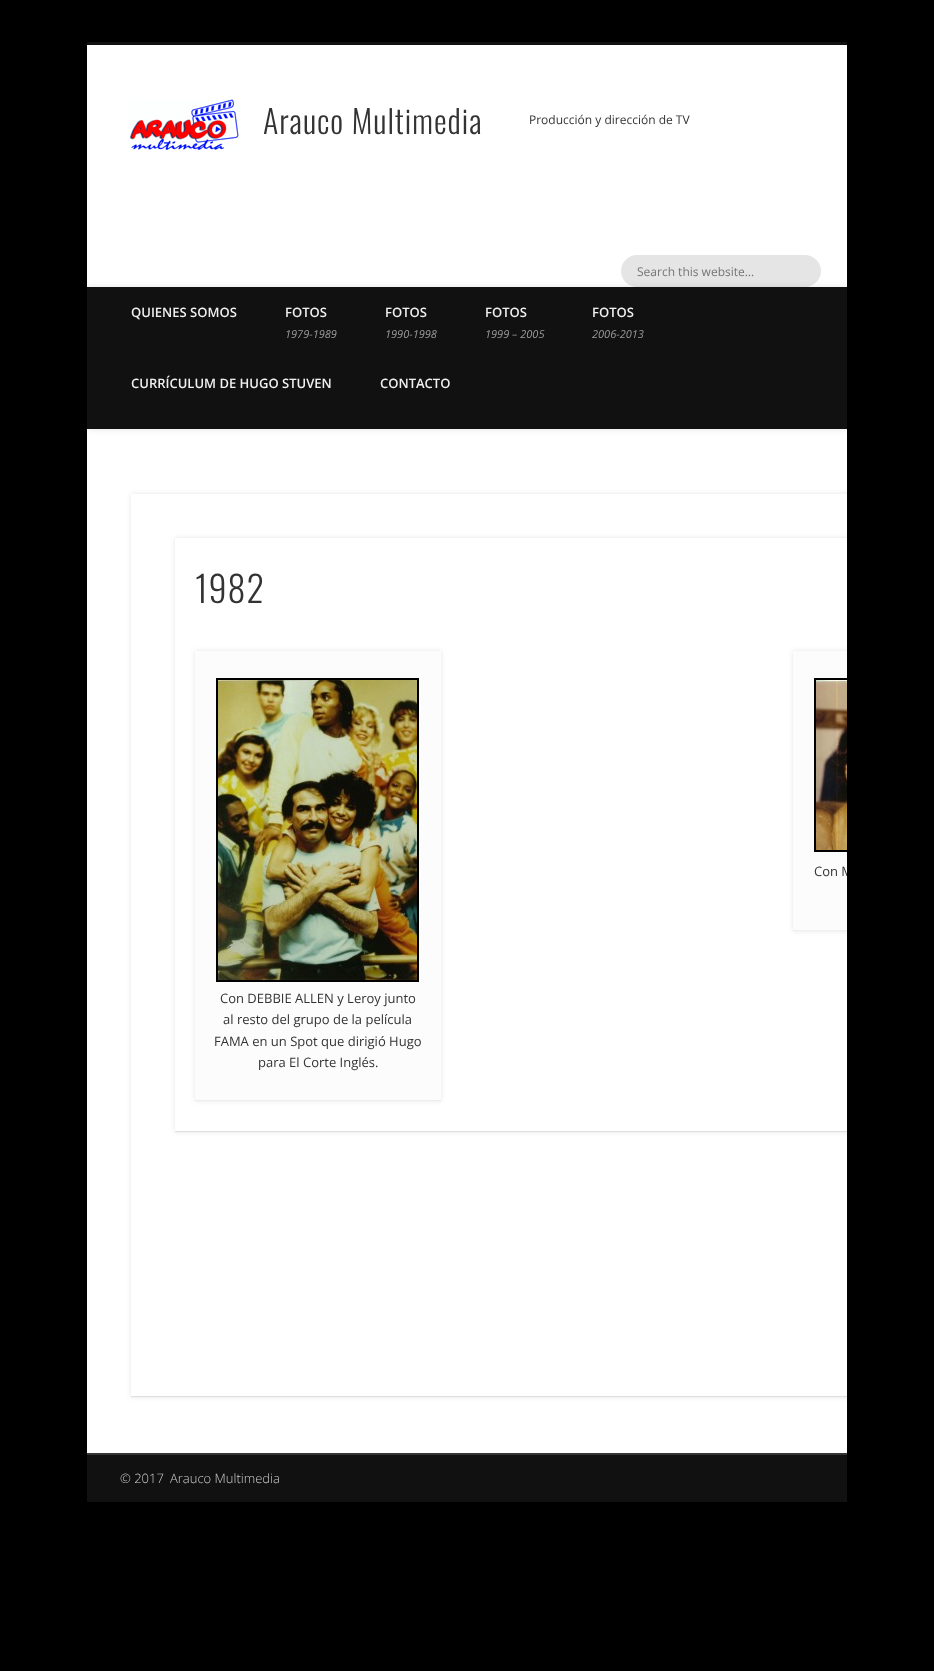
<svg xmlns="http://www.w3.org/2000/svg" width="934" height="1671" viewBox="0 0 934 1671">
  <defs>
    <clipPath id="clip1"><rect x="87" y="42" width="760" height="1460"/></clipPath>
    <filter id="blur1" x="-50%" y="-200%" width="200%" height="500%"><feGaussianBlur stdDeviation="3.5"/></filter>
    <clipPath id="clip2"><path d="M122 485H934V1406H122ZM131 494H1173V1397H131Z" clip-rule="evenodd"/></clipPath>
    <filter id="blur2" x="-50%" y="-200%" width="200%" height="500%"><feGaussianBlur stdDeviation="2.5"/></filter>
    <clipPath id="clip3"><path d="M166 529H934V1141H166ZM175 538H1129V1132H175Z" clip-rule="evenodd"/></clipPath>
    <clipPath id="clip4"><rect x="87" y="42" width="760" height="1460"/></clipPath>
  </defs>
  <rect width="100%" height="100%" fill="#000000"/>
  <rect x="87" y="45" width="760" height="1408" fill="#ffffff"/>
  <rect x="87" y="42" width="760" height="3" fill="#111111"/>
  <image x="129" y="99" width="110" height="51" href="img1.png"/>
  <text x="263" y="134" font-family="Oswald" font-size="32" font-weight="300" letter-spacing="1" fill="#333333">Arauco Multimedia</text>
  <text x="529" y="124" font-family="Open Sans" font-size="12" fill="#333333">Producción y dirección de TV</text>
  <g clip-path="url(#clip1)">
    <rect x="87" y="287" width="760" height="142" fill="#000000" fill-opacity="0.1" filter="url(#blur1)"/>
  </g>
  <rect x="621" y="255" width="200" height="32" rx="16" fill="#000000" fill-opacity="0.1"/>
  <text x="637" y="276" font-family="Open Sans" font-size="12" fill="#757575">Search this website…</text>
  <rect x="87" y="287" width="760" height="142" fill="#111111"/>
  <text x="131" y="317" font-family="Open Sans" font-size="13" font-weight="600" fill="#f0f0f0">QUIENES SOMOS</text>
  <text x="285" y="317" font-family="Open Sans" font-size="13" font-weight="600" fill="#f0f0f0">FOTOS</text>
  <text x="285" y="338" font-family="Open Sans" font-size="11" font-style="italic" fill="#999999">1979-1989</text>
  <text x="385" y="317" font-family="Open Sans" font-size="13" font-weight="600" fill="#f0f0f0">FOTOS</text>
  <text x="385" y="338" font-family="Open Sans" font-size="11" font-style="italic" fill="#999999">1990-1998</text>
  <text x="485" y="317" font-family="Open Sans" font-size="13" font-weight="600" fill="#f0f0f0">FOTOS</text>
  <text x="485" y="338" font-family="Open Sans" font-size="11" font-style="italic" fill="#999999">1999 – 2005</text>
  <text x="592" y="317" font-family="Open Sans" font-size="13" font-weight="600" fill="#f0f0f0">FOTOS</text>
  <text x="592" y="338" font-family="Open Sans" font-size="11" font-style="italic" fill="#999999">2006-2013</text>
  <text x="131" y="388" font-family="Open Sans" font-size="13" font-weight="600" fill="#f0f0f0">CURRÍCULUM DE HUGO STUVEN</text>
  <text x="380" y="388" font-family="Open Sans" font-size="13" font-weight="600" fill="#f0f0f0">CONTACTO</text>
  <g clip-path="url(#clip1)">
    <g clip-path="url(#clip2)">
      <rect x="131" y="494" width="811" height="903" fill="#000000" fill-opacity="0.1" filter="url(#blur2)"/>
    </g>
  </g>
  <rect x="131" y="1396" width="716" height="1" fill="#dedede"/>
  <g clip-path="url(#clip1)">
    <g clip-path="url(#clip3)">
      <rect x="175" y="538" width="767" height="594" fill="#000000" fill-opacity="0.1" filter="url(#blur2)"/>
    </g>
  </g>
  <rect x="175" y="1131" width="672" height="1" fill="#dedede"/>
  <text x="195" y="603" font-family="Oswald" font-size="36" font-weight="300" letter-spacing="1" fill="#333333">1982</text>
  <g clip-path="url(#clip1)">
    <rect x="793" y="651" width="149" height="280" fill="#000000" fill-opacity="0.1" filter="url(#blur2)"/>
  </g>
  <rect x="793" y="651" width="54" height="279" fill="#fcfcfc"/>
  <rect x="793" y="930" width="5" height="1" fill="#eeeeee"/>
  <g clip-path="url(#clip4)">
    <rect x="815" y="679" width="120" height="172" fill="none" stroke="#000000" stroke-width="2"/>
  </g>
  <image x="816" y="680" width="31" height="170" href="img2.png"/>
  <g clip-path="url(#clip4)">
    <text x="814" y="876" font-family="Open Sans" font-size="13" fill="#333333">Con M</text>
  </g>
  <rect x="195" y="651" width="246" height="450" fill="#000000" fill-opacity="0.1" filter="url(#blur2)"/>
  <rect x="195" y="651" width="246" height="449" fill="#fcfcfc"/>
  <rect x="195" y="1100" width="246" height="1" fill="#eeeeee"/>
  <rect x="217" y="679" width="201" height="302" fill="none" stroke="#000000" stroke-width="2"/>
  <image x="218" y="680" width="199" height="300" href="img3.png"/>
  <text x="220" y="1003" font-family="Open Sans" font-size="13" fill="#333333">Con DEBBIE ALLEN y Leroy junto</text>
  <text x="223" y="1024" font-family="Open Sans" font-size="13" fill="#333333">al resto del grupo de la película</text>
  <text x="214" y="1046" font-family="Open Sans" font-size="13" fill="#333333">FAMA en un Spot que dirigió Hugo</text>
  <text x="258" y="1067" font-family="Open Sans" font-size="13" fill="#333333">para El Corte Inglés.</text>
  <rect x="87" y="1453" width="760" height="1" fill="#363636"/>
  <rect x="87" y="1455" width="760" height="47" fill="#111111"/>
  <rect x="87" y="1454" width="760" height="1" fill="#343434"/>
  <text x="120" y="1483" font-family="Open Sans" font-size="13" font-weight="300" fill="#cccccc">© 2017</text>
  <text x="170" y="1483" font-family="Open Sans" font-size="13" font-weight="300" fill="#cccccc">Arauco Multimedia</text>
</svg>
